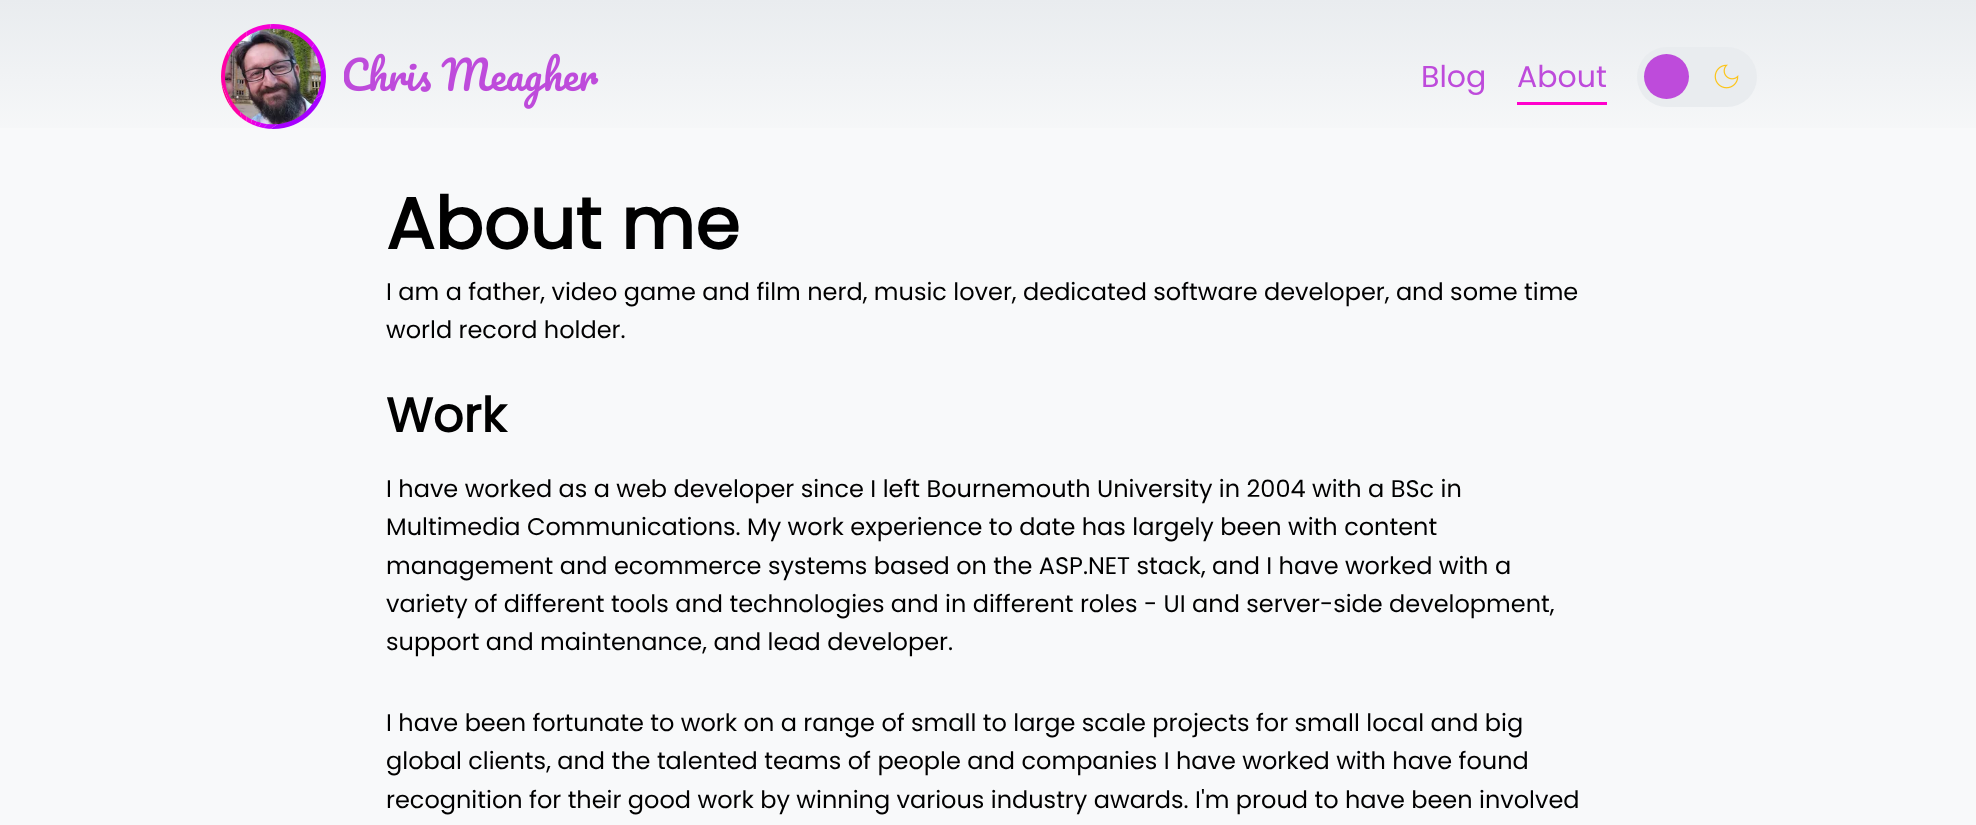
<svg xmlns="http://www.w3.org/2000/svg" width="1976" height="825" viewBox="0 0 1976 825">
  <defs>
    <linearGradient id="g1" gradientUnits="userSpaceOnUse" x1="989" y1="0" x2="989" y2="153"><stop offset="0" stop-color="#e9ecef"/><stop offset="1" stop-color="#f8f9fa"/></linearGradient>
  </defs>
  <rect width="100%" height="100%" fill="#f8f9fa"/>
  <rect x="0" y="0" width="1976" height="128" fill="url(#g1)"/>
  <image x="221" y="24" width="105" height="105" href="img1.png"/>
  <image x="225" y="28" width="96" height="97" href="img2.png"/>
  <image x="344" y="53" width="255" height="56" href="img3.png"/>
  <text x="1421" y="87" font-family="Poppins" font-size="30" fill="#be4bdb">Blog</text>
  <text x="1517" y="87" font-family="Poppins" font-size="30" fill="#be4bdb">About</text>
  <rect x="1517" y="102" width="90" height="3" fill="#ff00cc"/>
  <rect x="1637" y="47" width="120" height="60" rx="30" fill="#e9ecef"/>
  <circle cx="1666.5" cy="76.5" r="22.5" fill="#be4bdb"/>
  <image x="1714" y="64" width="25" height="25" href="img4.png"/>
  <text x="386" y="249" font-family="Poppins" font-size="72" font-weight="bold" fill="#000000">About me</text>
  <text x="386" y="300" font-family="Poppins" font-size="24" fill="#000000">I am a father, video game and film nerd, music lover, dedicated software developer, and some time</text>
  <text x="386" y="338" font-family="Poppins" font-size="24" fill="#000000">world record holder.</text>
  <text x="386" y="432" font-family="Poppins" font-size="48" font-weight="bold" fill="#000000">Work</text>
  <text x="386" y="497" font-family="Poppins" font-size="24" fill="#000000">I have worked as a web developer since I left Bournemouth University in 2004 with a BSc in</text>
  <text x="386" y="535" font-family="Poppins" font-size="24" fill="#000000">Multimedia Communications. My work experience to date has largely been with content</text>
  <text x="386" y="574" font-family="Poppins" font-size="24" fill="#000000">management and ecommerce systems based on the ASP.NET stack, and I have worked with a</text>
  <text x="386" y="612" font-family="Poppins" font-size="24" fill="#000000">variety of different tools and technologies and in different roles - UI and server-side development,</text>
  <text x="386" y="650" font-family="Poppins" font-size="24" fill="#000000">support and maintenance, and lead developer.</text>
  <text x="386" y="731" font-family="Poppins" font-size="24" fill="#000000">I have been fortunate to work on a range of small to large scale projects for small local and big</text>
  <text x="386" y="769" font-family="Poppins" font-size="24" fill="#000000">global clients, and the talented teams of people and companies I have worked with have found</text>
  <text x="386" y="808" font-family="Poppins" font-size="24" fill="#000000">recognition for their good work by winning various industry awards. I'm proud to have been involved</text>
</svg>
